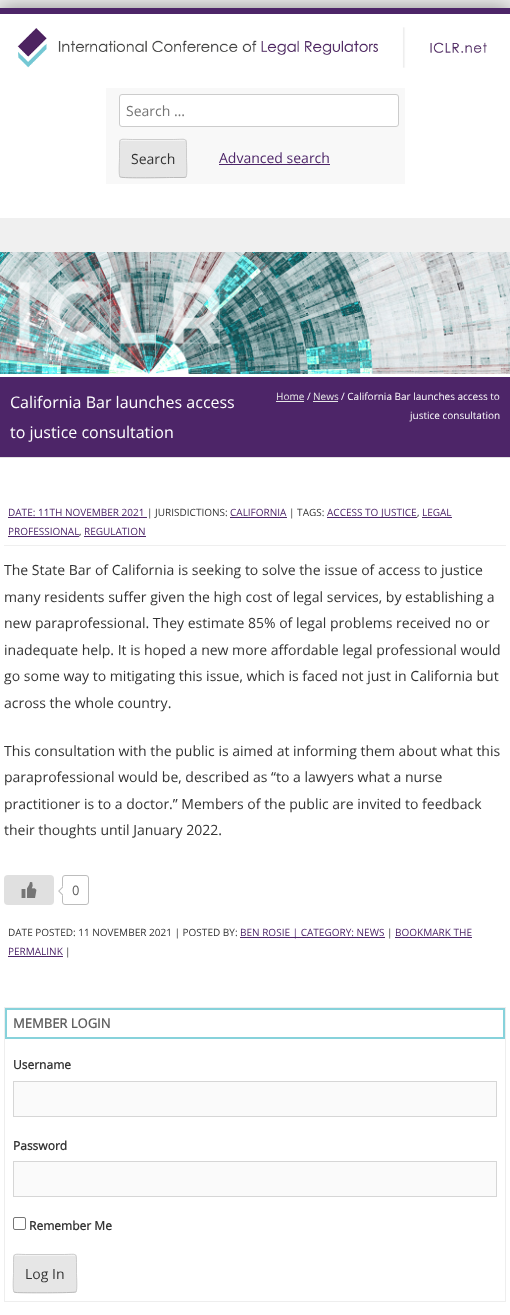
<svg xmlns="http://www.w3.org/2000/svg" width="510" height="1315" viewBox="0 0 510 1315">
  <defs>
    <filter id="blur1" x="-50%" y="-200%" width="200%" height="500%"><feGaussianBlur stdDeviation="10"/></filter>
  </defs>
  <rect width="100%" height="100%" fill="#eeeeee"/>
  <rect x="0" y="8" width="510" height="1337" fill="#000000" fill-opacity="0.4" filter="url(#blur1)"/>
  <rect x="0" y="14" width="510" height="1301" fill="#ffffff"/>
  <rect x="0" y="8" width="510" height="6" fill="#4d2568"/>
  <image x="17" y="27" width="470" height="41" href="img1.png"/>
  <rect x="106" y="88" width="299" height="96" fill="#f8f8f8"/>
  <rect x="119.5" y="94.5" width="279" height="32" rx="2.5" fill="#ffffff" stroke="#cccccc"/>
  <text x="126" y="116" font-family="Open Sans" font-size="14" fill="#757575">Search …</text>
  <rect x="119" y="139" width="68" height="39" rx="3" fill="#e6e6e6"/>
  <path d="M122 141H185L186 143C186 137 177 140 174 140H132C129 140 120 137 120 143C120 142 121 141 122 141Z" fill="#f3f3f3"/>
  <path d="M186 177L184 177.5H173.5C167.5 177.5 122.5 178.5 120.5 177H120" fill="none" stroke="#bbbbbb"/>
  <path d="M120 177C118.5 175 119.5 161.5 119.5 158.5V147.5C119.5 137 120 139.5 132.5 139.5H173.5C186 139.5 186.5 137 186.5 147.5V158.5C186.5 161.5 187.5 175 186 177" fill="none" stroke="#cccccc"/>
  <text x="131" y="164" font-family="Open Sans" font-size="14" fill="#333333">Search</text>
  <text x="219" y="163" font-family="Open Sans" font-size="14" fill="#4d2568">Advanced search</text>
  <rect x="219" y="164" width="111" height="1" fill="#4d2568"/>
  <rect x="0" y="218" width="510" height="34" fill="#f0f0f0"/>
  <image x="0" y="252" width="510" height="122" href="img2.png"/>
  <rect x="0" y="377" width="510" height="80" fill="#4d2568"/>
  <rect x="0" y="457" width="510" height="1" fill="#e1e1e1"/>
  <text x="10" y="408" font-family="Open Sans" font-size="16" fill="#ffffff">California Bar launches access</text>
  <text x="10" y="438" font-family="Open Sans" font-size="16" fill="#ffffff">to justice consultation</text>
  <text x="276" y="400" font-family="Open Sans" font-size="10" fill="#e7e7e7">Home</text>
  <rect x="276" y="401" width="28" height="1" fill="#e7e7e7"/>
  <text x="307" y="400" font-family="Open Sans" font-size="10" fill="#ffffff">/</text>
  <text x="313" y="400" font-family="Open Sans" font-size="10" fill="#e7e7e7">News</text>
  <rect x="313" y="401" width="25" height="1" fill="#e7e7e7"/>
  <text x="341" y="400" font-family="Open Sans" font-size="10" fill="#ffffff">/ California Bar launches access to</text>
  <text x="410" y="419" font-family="Open Sans" font-size="10" fill="#ffffff">justice consultation</text>
  <rect x="4" y="545" width="502" height="1" fill="#efefef"/>
  <text x="8" y="516" font-family="Open Sans" font-size="10" fill="#4d2568">DATE: 11TH NOVEMBER 2021</text>
  <rect x="8" y="517" width="139" height="1" fill="#4d2568"/>
  <text x="147" y="516" font-family="Open Sans" font-size="10" fill="#333333">| JURISDICTIONS:</text>
  <rect x="230" y="517" width="57" height="1" fill="#4d2568"/>
  <text x="230" y="516" font-family="Open Sans" font-size="10" fill="#4d2568">CALIFORNIA</text>
  <text x="289" y="516" font-family="Open Sans" font-size="10" fill="#333333">| TAGS:</text>
  <rect x="327" y="517" width="90" height="1" fill="#4d2568"/>
  <text x="327" y="516" font-family="Open Sans" font-size="10" fill="#4d2568">ACCESS TO JUSTICE</text>
  <text x="417" y="516" font-family="Open Sans" font-size="10" fill="#333333">,</text>
  <rect x="422" y="517" width="30" height="1" fill="#4d2568"/>
  <text x="422" y="516" font-family="Open Sans" font-size="10" fill="#4d2568">LEGAL</text>
  <text x="8" y="535" font-family="Open Sans" font-size="10" fill="#4d2568">PROFESSIONAL</text>
  <text x="79" y="535" font-family="Open Sans" font-size="10" fill="#333333">,</text>
  <rect x="8" y="536" width="71" height="1" fill="#4d2568"/>
  <rect x="84" y="536" width="62" height="1" fill="#4d2568"/>
  <text x="84" y="535" font-family="Open Sans" font-size="10" fill="#4d2568">REGULATION</text>
  <text x="4" y="575" font-family="Open Sans" font-size="14" fill="#333333">The State Bar of California is seeking to solve the issue of access to justice</text>
  <text x="4" y="602" font-family="Open Sans" font-size="14" fill="#333333">many residents suffer given the high cost of legal services, by establishing a</text>
  <text x="4" y="628" font-family="Open Sans" font-size="14" fill="#333333">new paraprofessional. They estimate 85% of legal problems received no or</text>
  <text x="4" y="655" font-family="Open Sans" font-size="14" fill="#333333">inadequate help. It is hoped a new more affordable legal professional would</text>
  <text x="4" y="681" font-family="Open Sans" font-size="14" fill="#333333">go some way to mitigating this issue, which is faced not just in California but</text>
  <text x="4" y="708" font-family="Open Sans" font-size="14" fill="#333333">across the whole country.</text>
  <text x="4" y="756" font-family="Open Sans" font-size="14" fill="#333333">This consultation with the public is aimed at informing them about what this</text>
  <text x="4" y="782" font-family="Open Sans" font-size="14" fill="#333333">paraprofessional would be, described as “to a lawyers what a nurse</text>
  <text x="4" y="809" font-family="Open Sans" font-size="14" fill="#333333">practitioner is to a doctor.” Members of the public are invited to feedback</text>
  <text x="4" y="835" font-family="Open Sans" font-size="14" fill="#333333">their thoughts until January 2022.</text>
  <rect x="4" y="875" width="50" height="30" rx="4" fill="#e0e0e0"/>
  <image x="21" y="882" width="16" height="16" href="img3.png"/>
  <rect x="62.5" y="875.5" width="26" height="29" rx="2.5" fill="none" stroke="#bdbdbd"/>
  <path d="M63 886L68 891L63 896L58 891Z" fill="#ffffff"/>
  <path d="M63 896L58 891H59.5L63 894.5ZM58 891L63 886V887.5L59.5 891Z" fill="#bdbdbd"/>
  <text x="72" y="895" font-family="Open Sans" font-size="13" fill="#616161">0</text>
  <text x="8" y="936" font-family="Open Sans" font-size="10" fill="#333333">DATE POSTED: 11 NOVEMBER 2021 | POSTED BY:</text>
  <rect x="240" y="937" width="145" height="1" fill="#4d2568"/>
  <text x="240" y="936" font-family="Open Sans" font-size="10" fill="#4d2568">BEN ROSIE | CATEGORY: NEWS</text>
  <text x="387" y="936" font-family="Open Sans" font-size="10" fill="#333333">|</text>
  <text x="395" y="936" font-family="Open Sans" font-size="10" fill="#4d2568">BOOKMARK THE</text>
  <rect x="395" y="937" width="77" height="1" fill="#4d2568"/>
  <text x="8" y="955" font-family="Open Sans" font-size="10" fill="#4d2568">PERMALINK</text>
  <rect x="8" y="956" width="55" height="1" fill="#4d2568"/>
  <text x="65" y="955" font-family="Open Sans" font-size="10" fill="#333333">|</text>
  <rect x="4.5" y="1007.5" width="501" height="294" fill="none" stroke="#eeeeee"/>
  <rect x="6" y="1009" width="498" height="29" fill="none" stroke="#87d2db" stroke-width="2"/>
  <text x="13" y="1028" font-family="Open Sans" font-size="13" font-weight="bold" fill="#616161">MEMBER LOGIN</text>
  <text x="13" y="1069" font-family="Open Sans" font-size="12" font-weight="bold" fill="#333333">Username</text>
  <rect x="13.5" y="1081.5" width="483" height="35" fill="#fafafa" stroke="#d6d6d6"/>
  <text x="13" y="1150" font-family="Open Sans" font-size="12" font-weight="bold" fill="#333333">Password</text>
  <rect x="13.5" y="1161.5" width="483" height="35" fill="#fafafa" stroke="#d6d6d6"/>
  <rect x="13.5" y="1217.5" width="12" height="12" rx="1.5" fill="none" stroke="#767676"/>
  <text x="29" y="1230" font-family="Open Sans" font-size="12" font-weight="bold" fill="#333333">Remember Me</text>
  <rect x="13" y="1254" width="64" height="39" rx="3" fill="#e6e6e6"/>
  <path d="M16 1256H74C75 1256 76 1257 76 1258C76 1252 68 1255 64 1255H26C22 1255 14 1252 14 1258C14 1257 15 1256 16 1256Z" fill="#f3f3f3"/>
  <path d="M76 1292H75.5C74.5 1293 21 1293 16 1292.5L14 1292" fill="none" stroke="#bbbbbb"/>
  <path d="M14 1292C12.5 1290 13.5 1276.5 13.5 1273.5V1262.5C13.5 1252 14 1254.5 25.5 1254.5H64.5C76 1254.5 76.5 1252 76.5 1262.5V1273.5C76.5 1276.5 77.5 1290 76 1292" fill="none" stroke="#cccccc"/>
  <text x="25" y="1279" font-family="Open Sans" font-size="14" fill="#333333">Log In</text>
</svg>
